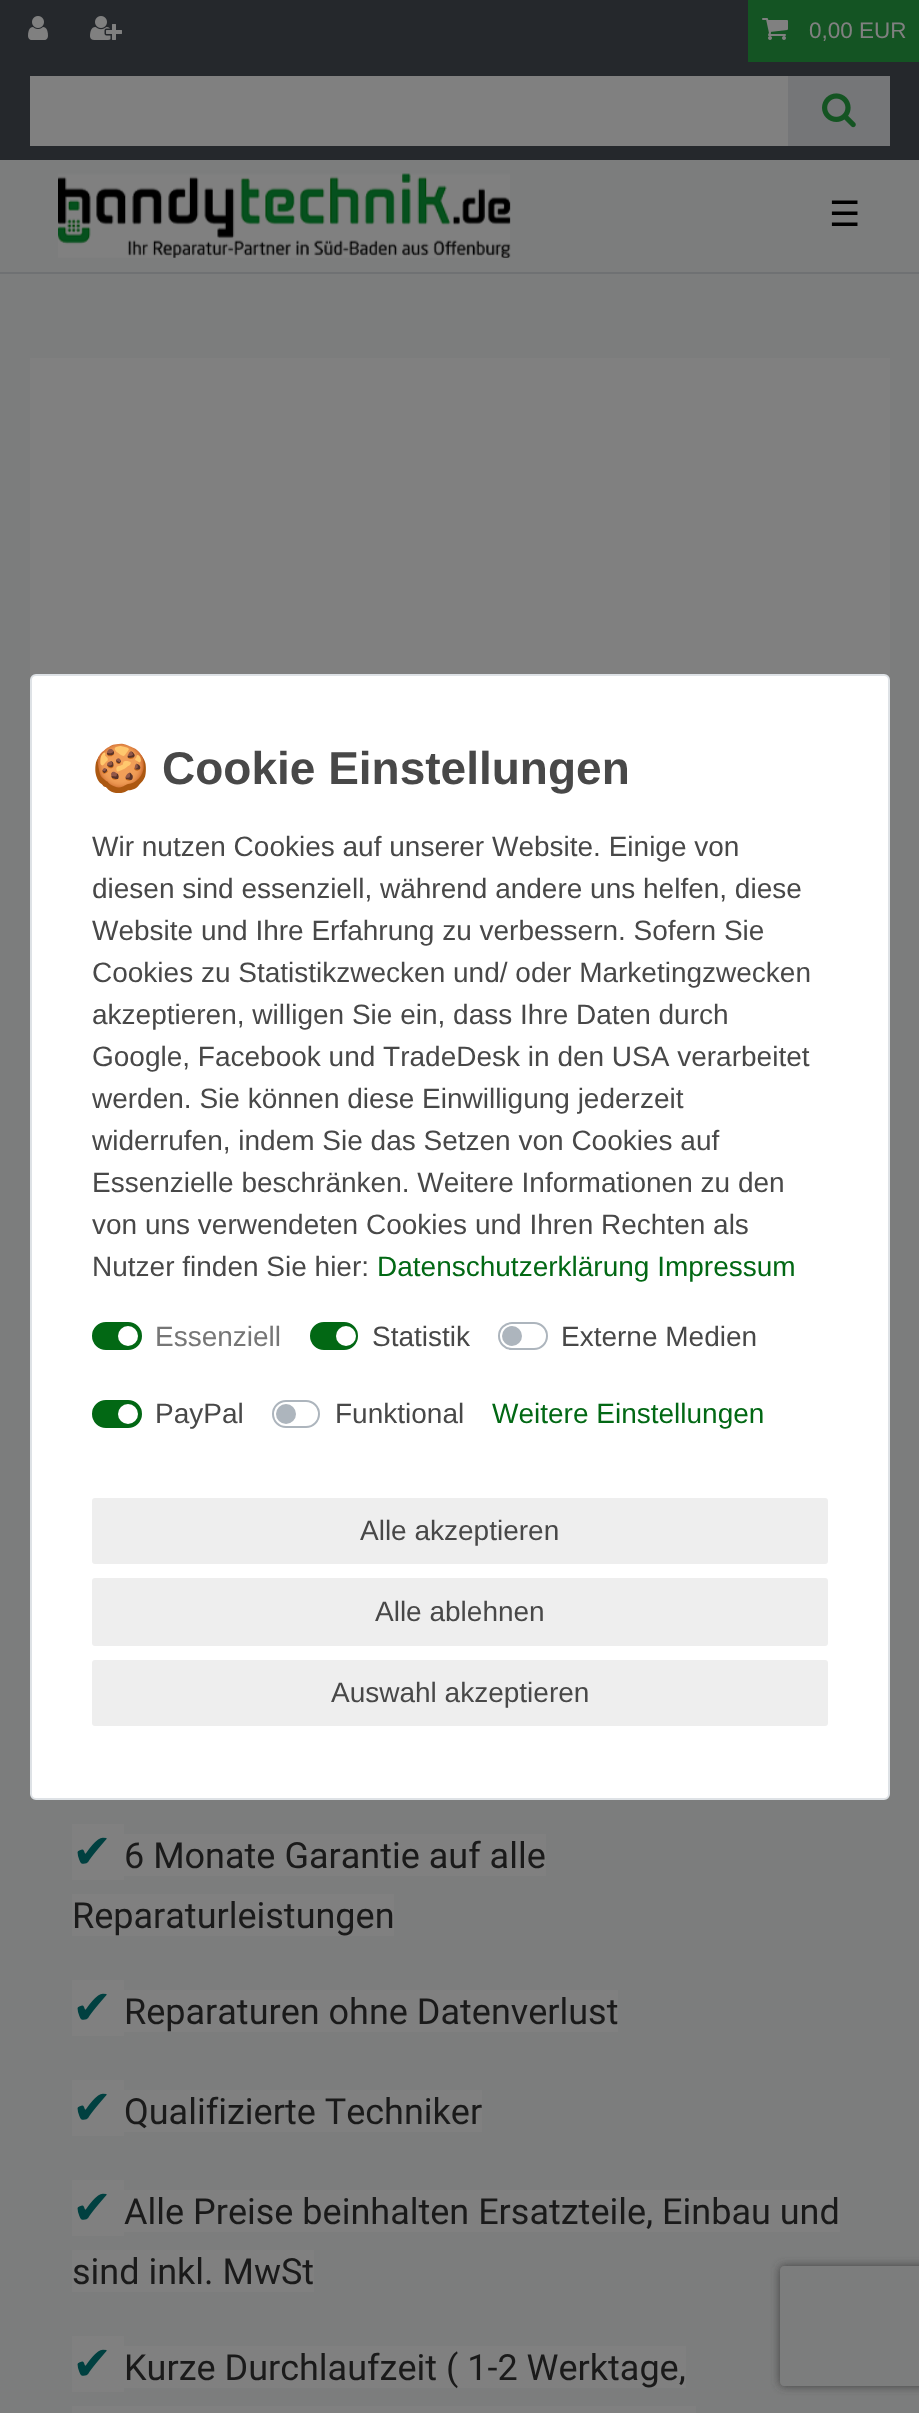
<svg xmlns="http://www.w3.org/2000/svg" width="919" height="2413" viewBox="0 0 919 2413">
  <style>*{font-kerning:none!important;font-variant-ligatures:none!important}</style>
  <defs>
    <clipPath id="clip1"><path d="M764 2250H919V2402H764ZM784 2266H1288C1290 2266 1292 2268 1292 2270V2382C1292 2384 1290 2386 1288 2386H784C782 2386 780 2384 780 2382V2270C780 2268 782 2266 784 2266Z" clip-rule="evenodd"/></clipPath>
    <filter id="blur1" x="-50%" y="-200%" width="200%" height="500%"><feGaussianBlur stdDeviation="5"/></filter>
  </defs>
  <rect width="100%" height="100%" fill="#7c7d7d"/>
  <rect x="0" y="0" width="919" height="160" fill="#25282c"/>
  <image x="28" y="16" width="20" height="24" href="img1.png"/>
  <image x="90" y="16" width="32" height="24" href="img2.png"/>
  <rect x="748" y="0" width="171" height="62" fill="#145423"/>
  <image x="762" y="18" width="26" height="22" href="img3.png"/>
  <text x="809" y="38" font-family="Liberation Sans" font-size="22.5" fill="#808080">0,00 EUR</text>
  <rect x="30" y="76" width="758" height="70" fill="#808080"/>
  <rect x="788" y="76" width="102" height="70" fill="#757678"/>
  <image x="822" y="93" width="34" height="35" href="img4.png"/>
  <rect x="0" y="272" width="919" height="2" fill="#6f7173"/>
  <image x="58" y="173" width="453" height="85" href="img5.png"/>
  <text x="829" y="226" font-family="DejaVu Sans" font-size="35" fill="#000000">☰</text>
  <rect x="30" y="358" width="860" height="322" fill="#808080"/>
  <rect x="31" y="675" width="858" height="1124" rx="5" fill="#ffffff" stroke="#dee2e6" stroke-width="2"/>
  <text x="92" y="784" font-family="Noto Color Emoji" font-size="46" font-weight="bold" fill="#484848">🍪</text>
  <text x="162" y="784" font-family="Liberation Sans" font-size="46" font-weight="bold" fill="#484848">Cookie Einstellungen</text>
  <text x="92" y="856" font-family="Liberation Sans" font-size="28" fill="#484848">Wir nutzen Cookies auf unserer Website. Einige von</text>
  <text x="92" y="898" font-family="Liberation Sans" font-size="28" fill="#484848">diesen sind essenziell, während andere uns helfen, diese</text>
  <text x="92" y="940" font-family="Liberation Sans" font-size="28" fill="#484848">Website und Ihre Erfahrung zu verbessern. Sofern Sie</text>
  <text x="92" y="982" font-family="Liberation Sans" font-size="28" fill="#484848">Cookies zu Statistikzwecken und/ oder Marketingzwecken</text>
  <text x="92" y="1024" font-family="Liberation Sans" font-size="28" fill="#484848">akzeptieren, willigen Sie ein, dass Ihre Daten durch</text>
  <text x="92" y="1066" font-family="Liberation Sans" font-size="28" fill="#484848">Google, Facebook und TradeDesk in den USA verarbeitet</text>
  <text x="92" y="1108" font-family="Liberation Sans" font-size="28" fill="#484848">werden. Sie können diese Einwilligung jederzeit</text>
  <text x="92" y="1150" font-family="Liberation Sans" font-size="28" fill="#484848">widerrufen, indem Sie das Setzen von Cookies auf</text>
  <text x="92" y="1192" font-family="Liberation Sans" font-size="28" fill="#484848">Essenzielle beschränken. Weitere Informationen zu den</text>
  <text x="92" y="1234" font-family="Liberation Sans" font-size="28" fill="#484848">von uns verwendeten Cookies und Ihren Rechten als</text>
  <text x="92" y="1276" font-family="Liberation Sans" font-size="28" fill="#484848">Nutzer finden Sie hier:</text>
  <text x="377" y="1276" font-family="Liberation Sans" font-size="28" fill="#026814">Datenschutzerklärung Impressum</text>
  <rect x="93" y="1323" width="48" height="26" rx="13" fill="#026814" stroke="#026814" stroke-width="2"/>
  <text x="155" y="1346" font-family="Liberation Sans" font-size="28" fill="#767676">Essenziell</text>
  <circle cx="128" cy="1336" r="10" fill="#ffffff"/>
  <rect x="311" y="1323" width="46" height="26" rx="13" fill="#026814" stroke="#026814" stroke-width="2"/>
  <text x="372" y="1346" font-family="Liberation Sans" font-size="28" fill="#484848">Statistik</text>
  <circle cx="346" cy="1336" r="10" fill="#ffffff"/>
  <rect x="499" y="1323" width="48" height="26" rx="13" fill="none" stroke="#adb5bd" stroke-width="2"/>
  <text x="561" y="1346" font-family="Liberation Sans" font-size="28" fill="#484848">Externe Medien</text>
  <circle cx="512" cy="1336" r="10" fill="#adb5bd"/>
  <rect x="93" y="1401" width="48" height="26" rx="13" fill="#026814" stroke="#026814" stroke-width="2"/>
  <text x="155" y="1423" font-family="Liberation Sans" font-size="28" fill="#484848">PayPal</text>
  <circle cx="128" cy="1414" r="10" fill="#ffffff"/>
  <rect x="273" y="1401" width="46" height="26" rx="13" fill="none" stroke="#adb5bd" stroke-width="2"/>
  <text x="335" y="1423" font-family="Liberation Sans" font-size="28" fill="#484848">Funktional</text>
  <circle cx="286" cy="1414" r="10" fill="#adb5bd"/>
  <text x="492" y="1423" font-family="Liberation Sans" font-size="28" fill="#026814">Weitere Einstellungen</text>
  <rect x="93" y="1499" width="734" height="64" rx="2" fill="#eeeeee" stroke="#eeeeee" stroke-width="2"/>
  <text x="360" y="1540" font-family="Liberation Sans" font-size="28" fill="#484848">Alle akzeptieren</text>
  <rect x="93" y="1579" width="734" height="66" rx="2" fill="#eeeeee" stroke="#eeeeee" stroke-width="2"/>
  <text x="375" y="1621" font-family="Liberation Sans" font-size="28" fill="#484848">Alle ablehnen</text>
  <rect x="93" y="1661" width="734" height="64" rx="2" fill="#eeeeee" stroke="#eeeeee" stroke-width="2"/>
  <text x="331" y="1702" font-family="Liberation Sans" font-size="28" fill="#484848">Auswahl akzeptieren</text>
  <rect x="72" y="1824" width="52" height="56" fill="#808080"/>
  <text x="72" y="1868" font-family="DejaVu Sans" font-size="48" fill="#004040">✔</text>
  <rect x="124" y="1834" width="422" height="42" fill="#808080"/>
  <text x="124" y="1868" font-family="Roboto" font-size="36" fill="#1a1a1a">6 Monate Garantie auf alle</text>
  <rect x="72" y="1894" width="322" height="42" fill="#808080"/>
  <text x="72" y="1928" font-family="Roboto" font-size="36" fill="#1a1a1a">Reparaturleistungen</text>
  <rect x="72" y="1980" width="52" height="56" fill="#808080"/>
  <text x="72" y="2024" font-family="DejaVu Sans" font-size="48" fill="#004040">✔</text>
  <rect x="124" y="1990" width="494" height="42" fill="#808080"/>
  <text x="124" y="2024" font-family="Roboto" font-size="36" fill="#1a1a1a">Reparaturen ohne Datenverlust</text>
  <rect x="72" y="2080" width="52" height="56" fill="#808080"/>
  <text x="72" y="2124" font-family="DejaVu Sans" font-size="48" fill="#004040">✔</text>
  <rect x="124" y="2090" width="358" height="42" fill="#808080"/>
  <text x="124" y="2124" font-family="Roboto" font-size="36" fill="#1a1a1a">Qualifizierte Techniker</text>
  <rect x="72" y="2180" width="52" height="56" fill="#808080"/>
  <text x="72" y="2224" font-family="DejaVu Sans" font-size="48" fill="#004040">✔</text>
  <rect x="124" y="2190" width="716" height="42" fill="#808080"/>
  <text x="124" y="2224" font-family="Roboto" font-size="36" fill="#1a1a1a">Alle Preise beinhalten Ersatzteile, Einbau und</text>
  <rect x="72" y="2250" width="242" height="42" fill="#808080"/>
  <text x="72" y="2284" font-family="Roboto" font-size="36" fill="#1a1a1a">sind inkl. MwSt</text>
  <rect x="72" y="2336" width="52" height="56" fill="#808080"/>
  <text x="72" y="2380" font-family="DejaVu Sans" font-size="48" fill="#004040">✔</text>
  <rect x="124" y="2346" width="562" height="42" fill="#808080"/>
  <text x="124" y="2380" font-family="Roboto" font-size="36" fill="#1a1a1a">Kurze Durchlaufzeit ( 1-2 Werktage,</text>
  <rect x="72" y="2406" width="624" height="7" fill="#808080"/>
  <g clip-path="url(#clip1)">
    <rect x="780" y="2266" width="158" height="120" rx="4" fill="#404040" filter="url(#blur1)"/>
  </g>
</svg>
